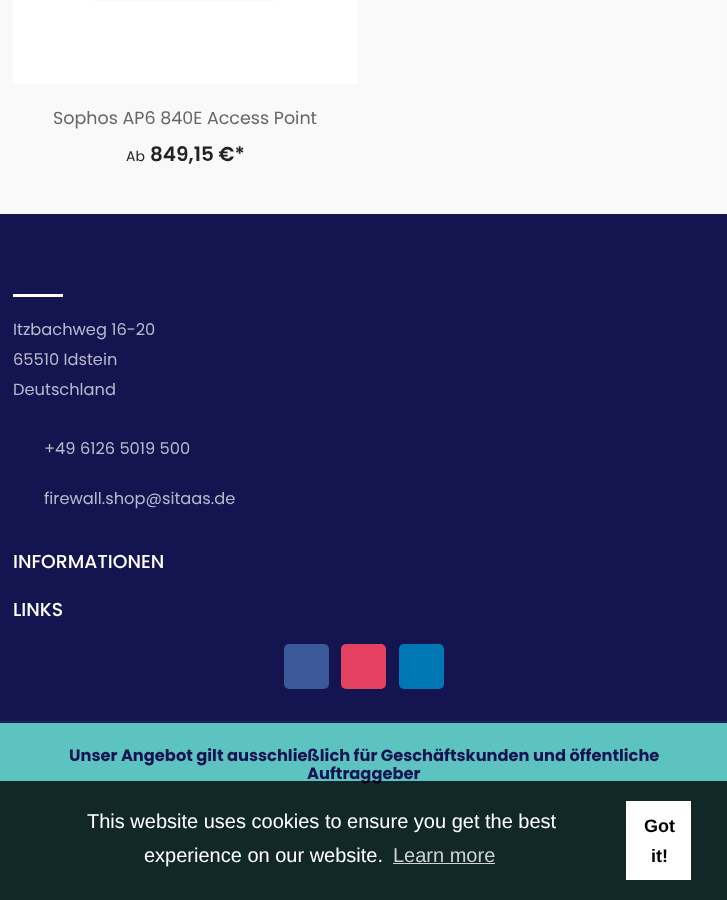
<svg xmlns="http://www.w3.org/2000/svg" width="727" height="900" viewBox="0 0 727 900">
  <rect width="100%" height="100%" fill="#f9f9f9"/>
  <rect x="13" y="0" width="345" height="84" fill="#ffffff"/>
  <rect x="93" y="0" width="181" height="1" fill="#fafafa"/>
  <text x="53" y="124" font-family="Poppins" font-size="17.5" fill="#666666">Sophos AP6 840E Access Point</text>
  <text x="126" y="161" font-family="Poppins" font-size="14" fill="#232323">Ab</text>
  <text x="150" y="161" font-family="Poppins" font-size="20" font-weight="600" fill="#232323">849,15 €*</text>
  <rect x="0" y="214" width="727" height="509" fill="#141450"/>
  <rect x="13" y="294" width="50" height="3" fill="#ffffff"/>
  <text x="13" y="335" font-family="Poppins" font-size="16.25" fill="#b9b9cb">Itzbachweg 16-20</text>
  <text x="13" y="365" font-family="Poppins" font-size="16.25" fill="#b9b9cb">65510 Idstein</text>
  <text x="13" y="395" font-family="Poppins" font-size="16.25" fill="#b9b9cb">Deutschland</text>
  <text x="44" y="454" font-family="Poppins" font-size="16.25" fill="#b9b9cb">+49 6126 5019 500</text>
  <text x="44" y="504" font-family="Poppins" font-size="16.25" fill="#b9b9cb">firewall.shop@sitaas.de</text>
  <text x="13" y="568" font-family="Poppins" font-size="18.75" font-weight="500" fill="#ffffff">INFORMATIONEN</text>
  <text x="13" y="616" font-family="Poppins" font-size="18.75" font-weight="500" fill="#ffffff">LINKS</text>
  <rect x="284" y="644" width="45" height="45" rx="5" fill="#3b5998"/>
  <rect x="341" y="644" width="45" height="45" rx="5" fill="#e4405f"/>
  <rect x="399" y="644" width="45" height="45" rx="5" fill="#0077b5"/>
  <rect x="0" y="721" width="727" height="1" fill="#2c2c62"/>
  <rect x="0" y="723" width="727" height="177" fill="#5dc3c1"/>
  <text x="69" y="761" font-family="Poppins" font-size="16.25" font-weight="bold" fill="#141450">Unser Angebot gilt ausschließlich für Geschäftskunden und öffentliche</text>
  <text x="307" y="779" font-family="Poppins" font-size="16.25" font-weight="bold" fill="#141450">Auftraggeber</text>
  <rect x="0" y="781" width="727" height="119" fill="#000000" fill-opacity="0.8"/>
  <text x="87" y="828" font-family="Liberation Sans" font-size="20" fill="#ffffff">This website uses cookies to ensure you get the best</text>
  <text x="144" y="862" font-family="Liberation Sans" font-size="20" fill="#ffffff">experience on our website.</text>
  <text x="393" y="862" font-family="Liberation Sans" font-size="20" fill="#cfd2d2">Learn more</text>
  <rect x="393" y="863" width="102" height="1" fill="#ffffff" fill-opacity="0.8"/>
  <rect x="626" y="801" width="65" height="79" fill="#ffffff"/>
  <text x="644" y="832" font-family="Liberation Sans" font-size="18" font-weight="bold" fill="#000000">Got</text>
  <text x="651" y="862" font-family="Liberation Sans" font-size="18" font-weight="bold" fill="#000000">it!</text>
</svg>
